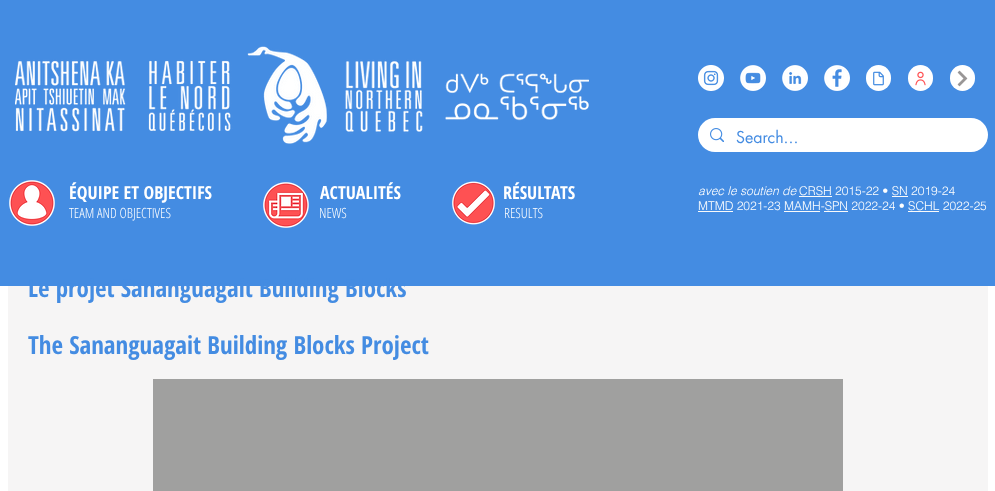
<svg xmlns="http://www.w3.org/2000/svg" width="995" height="491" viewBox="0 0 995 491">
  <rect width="100%" height="100%" fill="#ffffff"/>
  <rect x="0" y="0" width="995" height="286" fill="#448ce2"/>
  <image x="15" y="46" width="574" height="98" href="img1.png"/>
  <image x="698" y="65" width="26" height="26" href="img2.png"/>
  <image x="740" y="65" width="26" height="26" href="img3.png"/>
  <image x="782" y="65" width="26" height="26" href="img4.png"/>
  <image x="824" y="65" width="26" height="26" href="img5.png"/>
  <rect x="866" y="65" width="25" height="26" rx="12.5" fill="#ffffff"/>
  <image x="873" y="71" width="11" height="15" href="img6.png"/>
  <rect x="908" y="65" width="25" height="26" rx="12.5" fill="#ffffff"/>
  <image x="915" y="71" width="11" height="15" href="img7.png"/>
  <rect x="950" y="65" width="25" height="26" rx="12.5" fill="#ffffff"/>
  <image x="957" y="70" width="11" height="17" href="img8.png"/>
  <rect x="698" y="118" width="290" height="34" rx="17" fill="#ffffff"/>
  <image x="710" y="128" width="14" height="14" href="img9.png"/>
  <text x="736" y="143" font-family="futura" font-size="16" fill="#448ce2">Search...</text>
  <image x="9" y="180" width="46" height="46" href="img10.png"/>
  <text x="69" y="199" font-family="Open Sans Condensed" font-size="18" font-weight="bold" fill="#ffffff">ÉQUIPE ET OBJECTIFS</text>
  <image x="263" y="182" width="46" height="46" href="img11.png"/>
  <text x="320" y="199" font-family="Open Sans Condensed" font-size="18" font-weight="bold" fill="#ffffff">ACTUALITÉS</text>
  <image x="452" y="181" width="44" height="44" href="img12.png"/>
  <text x="503" y="199" font-family="Open Sans Condensed" font-size="18" font-weight="bold" fill="#ffffff">RÉSULTATS</text>
  <text x="698" y="195" font-family="helvetica" font-size="12" font-weight="300" font-style="italic" fill="#ffffff">avec le soutien de</text>
  <text x="799" y="195" font-family="helvetica" font-size="12" font-weight="300" fill="#ffffff">CRSH 2015-22 • SN 2019-24</text>
  <rect x="799" y="196" width="33" height="1" fill="#fafafa"/>
  <rect x="892" y="196" width="16" height="1" fill="#fafafa"/>
  <text x="698" y="210" font-family="helvetica" font-size="12" font-weight="300" fill="#ffffff">MTMD 2021-23 MAMH-SPN 2022-24 • SCHL 2022-25</text>
  <rect x="698" y="211" width="35" height="1" fill="#fafafa"/>
  <rect x="784" y="211" width="36" height="1" fill="#fafafa"/>
  <rect x="824" y="211" width="24" height="1" fill="#fafafa"/>
  <rect x="908" y="211" width="31" height="1" fill="#fafafa"/>
  <text x="69" y="218" font-family="Open Sans Condensed" font-size="14" font-weight="300" fill="#ffffff">TEAM AND OBJECTIVES</text>
  <text x="319" y="218" font-family="Open Sans Condensed" font-size="14" font-weight="300" fill="#ffffff">NEWS</text>
  <text x="504" y="218" font-family="Open Sans Condensed" font-size="14" font-weight="300" fill="#ffffff">RESULTS</text>
  <rect x="8" y="286" width="980" height="205" fill="#f6f5f5"/>
  <text x="28" y="297" font-family="Open Sans Condensed" font-size="25" font-weight="bold" fill="#448ce2">Le projet Sananguagait Building Blocks</text>
  <text x="28" y="354" font-family="Open Sans Condensed" font-size="25" font-weight="bold" fill="#448ce2">The Sananguagait Building Blocks Project</text>
  <rect x="153" y="379" width="690" height="112" fill="#a0a09f"/>
</svg>
